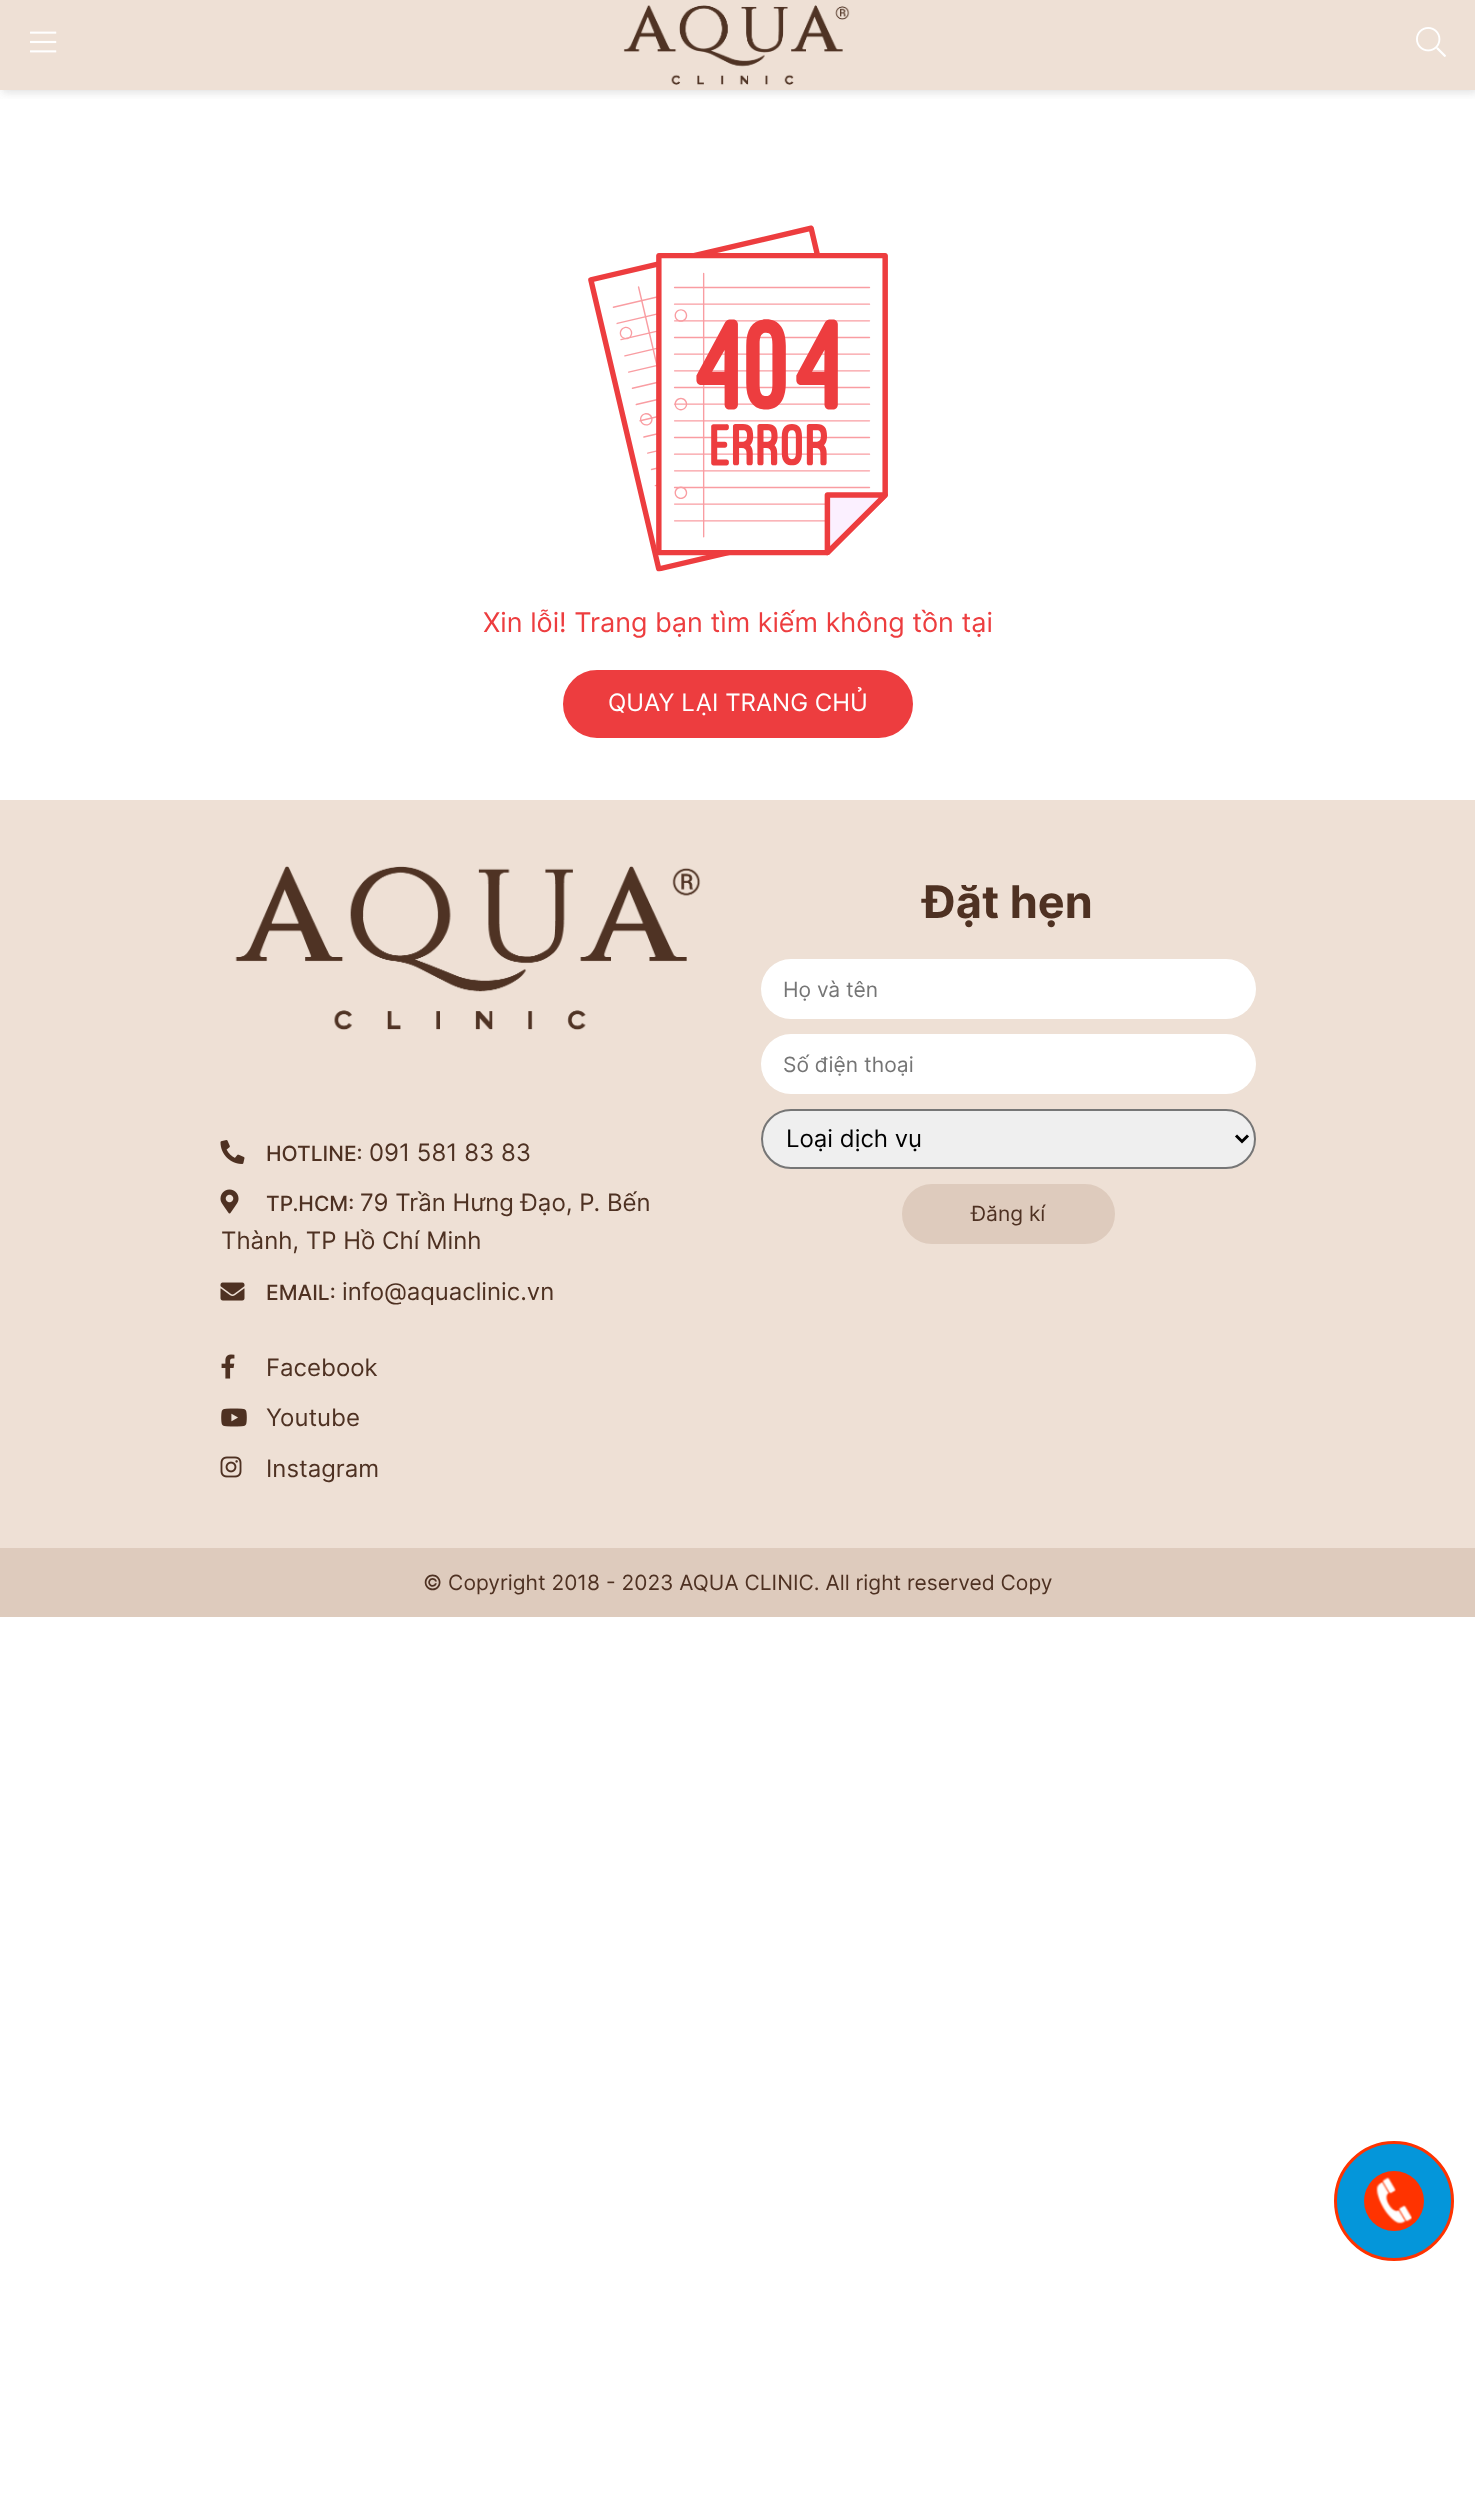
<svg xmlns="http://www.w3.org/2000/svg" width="1475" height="2500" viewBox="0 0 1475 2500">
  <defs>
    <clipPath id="clip1"><rect x="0" y="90" width="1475" height="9"/></clipPath>
    <filter id="blur1" x="-50%" y="-200%" width="200%" height="500%"><feGaussianBlur stdDeviation="4.5"/></filter>
  </defs>
  <rect width="100%" height="100%" fill="#ffffff"/>
  <rect x="0" y="0" width="1475" height="90" fill="#eee0d5"/>
  <g clip-path="url(#clip1)">
    <rect x="2" y="3" width="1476" height="90" fill="#747474" fill-opacity="0.2" filter="url(#blur1)"/>
  </g>
  <image x="30" y="31" width="27" height="22" href="img1.png"/>
  <image x="623" y="5" width="227" height="80" href="img2.png"/>
  <image x="1416" y="27" width="30" height="30" href="img3.png"/>
  <image x="588" y="225" width="300" height="347" href="img4.png"/>
  <text x="483" y="632" font-family="Inter" font-size="27" fill="#ed3d3f">Xin lỗi! Trang bạn tìm kiếm không tồn tại</text>
  <rect x="562" y="669" width="352" height="70" rx="35" fill="#ed3d3f" stroke="#ffffff" stroke-width="2"/>
  <text x="608" y="711" font-family="Inter" font-size="24" fill="#ffffff">QUAY LẠI TRANG CHỦ</text>
  <rect x="0" y="800" width="1475" height="748" fill="#eee0d5"/>
  <text x="923" y="918" font-family="Inter" font-size="45" font-weight="bold" fill="#4e3122">Đặt hẹn</text>
  <rect x="761" y="959" width="495" height="60" rx="30" fill="#ffffff"/>
  <text x="783" y="997" font-family="Inter" font-size="21" fill="#757575">Họ và tên</text>
  <rect x="761" y="1034" width="495" height="60" rx="30" fill="#ffffff"/>
  <text x="783" y="1072" font-family="Inter" font-size="21" fill="#757575">Số điện thoại</text>
  <rect x="762" y="1110" width="493" height="58" rx="29" fill="#efefef" stroke="#767676" stroke-width="2"/>
  <path d="M1236 1135.5L1242 1141.5L1248 1135.5" fill="none" stroke="#000000" stroke-width="3"/>
  <text x="786" y="1147" font-family="Inter" font-size="24" fill="#000000">Loại dịch vụ</text>
  <rect x="903" y="1185" width="211" height="58" rx="29" fill="#decbbd" stroke="#decbbd" stroke-width="2"/>
  <text x="971" y="1221" font-family="Inter" font-size="21" fill="#4e3122">Đăng kí</text>
  <image x="235" y="866" width="466" height="164" href="img5.png"/>
  <image x="220" y="1140" width="25" height="24" href="img6.png"/>
  <text x="266" y="1161" font-family="Inter" font-size="21" font-weight="500" fill="#4e3122">HOTLINE:</text>
  <text x="369" y="1161" font-family="Inter" font-size="24" fill="#4e3122">091 581 83 83</text>
  <image x="220" y="1189" width="19" height="25" href="img7.png"/>
  <text x="266" y="1211" font-family="Inter" font-size="21" font-weight="500" fill="#4e3122">TP.HCM:</text>
  <text x="360" y="1211" font-family="Inter" font-size="24" fill="#4e3122">79 Trần Hưng Đạo, P. Bến</text>
  <text x="221" y="1249" font-family="Inter" font-size="24" fill="#4e3122">Thành, TP Hồ Chí Minh</text>
  <image x="220" y="1282" width="25" height="19" href="img8.png"/>
  <text x="266" y="1300" font-family="Inter" font-size="21" font-weight="500" fill="#4e3122">EMAIL:</text>
  <text x="342" y="1300" font-family="Inter" font-size="24" fill="#4e3122">info@aquaclinic.vn</text>
  <image x="221" y="1354" width="14" height="25" href="img9.png"/>
  <text x="266" y="1376" font-family="Inter" font-size="24" fill="#4e3122">Facebook</text>
  <image x="221" y="1408" width="26" height="19" href="img10.png"/>
  <text x="266" y="1426" font-family="Inter" font-size="24" fill="#4e3122">Youtube</text>
  <image x="220" y="1456" width="22" height="22" href="img11.png"/>
  <text x="266" y="1477" font-family="Inter" font-size="24" fill="#4e3122">Instagram</text>
  <rect x="0" y="1548" width="1475" height="69" fill="#decbbd"/>
  <text x="423" y="1590" font-family="Inter" font-size="21" fill="#4e3122">© Copyright 2018 - 2023 AQUA CLINIC. All right reserved Copy</text>
  <circle cx="1394" cy="2201" r="58.5" fill="#0496da" stroke="#ff3300" stroke-width="3"/>
  <circle cx="1394" cy="2201" r="30" fill="#ff3300"/>
  <image x="1376" y="2177" width="36" height="47" href="img12.png"/>
</svg>
